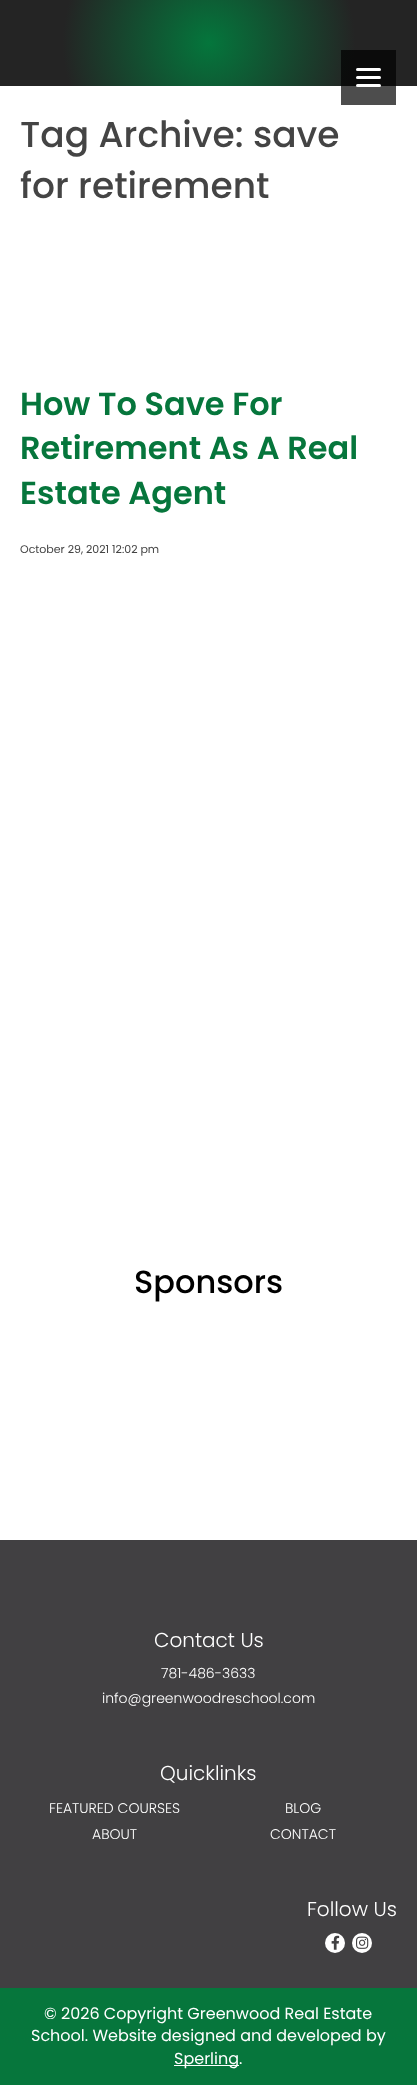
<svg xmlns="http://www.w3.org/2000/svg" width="417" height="2085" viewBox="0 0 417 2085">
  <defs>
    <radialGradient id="g1" gradientUnits="userSpaceOnUse" cx="209" cy="43" r="209"><stop offset="0" stop-color="#04763c"/><stop offset="0.7" stop-color="#242424"/></radialGradient>
    <radialGradient id="g2" gradientUnits="userSpaceOnUse" cx="209" cy="43" r="209"><stop offset="0" stop-color="#012312"/><stop offset="0.7" stop-color="#0b0b0b"/></radialGradient>
  </defs>
  <rect width="100%" height="100%" fill="#ffffff"/>
  <rect x="341" y="86" width="55" height="19" fill="#4d4d4d"/>
  <rect x="0" y="0" width="417" height="86" fill="url(#g1)"/>
  <rect x="341" y="50" width="55" height="36" fill="url(#g2)"/>
  <rect x="356" y="68" width="25" height="3" rx="1.5" fill="#ffffff"/>
  <rect x="356" y="76" width="25" height="3" rx="1.5" fill="#ffffff"/>
  <rect x="356" y="84" width="25" height="3" rx="1.5" fill="#ffffff"/>
  <text x="20" y="147" font-family="Poppins" font-size="36" font-weight="500" fill="#444444">Tag Archive: save</text>
  <text x="20" y="198" font-family="Poppins" font-size="36" font-weight="500" fill="#444444">for retirement</text>
  <text x="20" y="415" font-family="Poppins" font-size="32" font-weight="600" fill="#06763c">How To Save For</text>
  <text x="20" y="459" font-family="Poppins" font-size="32" font-weight="600" fill="#06763c">Retirement As A Real</text>
  <text x="20" y="504" font-family="Poppins" font-size="32" font-weight="600" fill="#06763c">Estate Agent</text>
  <text x="20" y="553" font-family="Poppins" font-size="11" fill="#444444">October 29, 2021 12:02 pm</text>
  <text x="134" y="1293" font-family="Poppins" font-size="32" font-weight="500" fill="#000000">Sponsors</text>
  <rect x="0" y="1540" width="417" height="448" fill="#414042"/>
  <text x="154" y="1647" font-family="Poppins" font-size="20" font-weight="300" fill="#ffffff">Contact Us</text>
  <text x="161" y="1678" font-family="Poppins" font-size="14" font-weight="300" fill="#ffffff">781-486-3633</text>
  <text x="102" y="1703" font-family="Poppins" font-size="14" font-weight="300" fill="#ffffff">info@greenwoodreschool.com</text>
  <text x="160" y="1780" font-family="Poppins" font-size="20" font-weight="300" fill="#ffffff">Quicklinks</text>
  <text x="49" y="1813" font-family="Poppins" font-size="14" font-weight="300" fill="#ffffff">FEATURED COURSES</text>
  <text x="285" y="1813" font-family="Poppins" font-size="14" font-weight="300" fill="#ffffff">BLOG</text>
  <text x="92" y="1839" font-family="Poppins" font-size="14" font-weight="300" fill="#ffffff">ABOUT</text>
  <text x="270" y="1839" font-family="Poppins" font-size="14" font-weight="300" fill="#ffffff">CONTACT</text>
  <text x="307" y="1916" font-family="Poppins" font-size="20" font-weight="300" fill="#ffffff">Follow Us</text>
  <circle cx="335" cy="1943" r="10" fill="#ffffff"/>
  <image x="331" y="1935" width="9" height="15" href="img1.png"/>
  <circle cx="362" cy="1943" r="10" fill="#ffffff"/>
  <image x="356" y="1936" width="13" height="13" href="img2.png"/>
  <rect x="0" y="1988" width="417" height="97" fill="#06763c"/>
  <text x="44" y="2019" font-family="Poppins" font-size="16" fill="#ffffff">© 2026 Copyright Greenwood Real Estate</text>
  <text x="31" y="2041" font-family="Poppins" font-size="16" fill="#ffffff">School. Website designed and developed by</text>
  <rect x="174" y="2065" width="65" height="1" fill="#ffffff"/>
  <text x="174" y="2064" font-family="Poppins" font-size="16" fill="#ffffff">Sperling.</text>
</svg>
